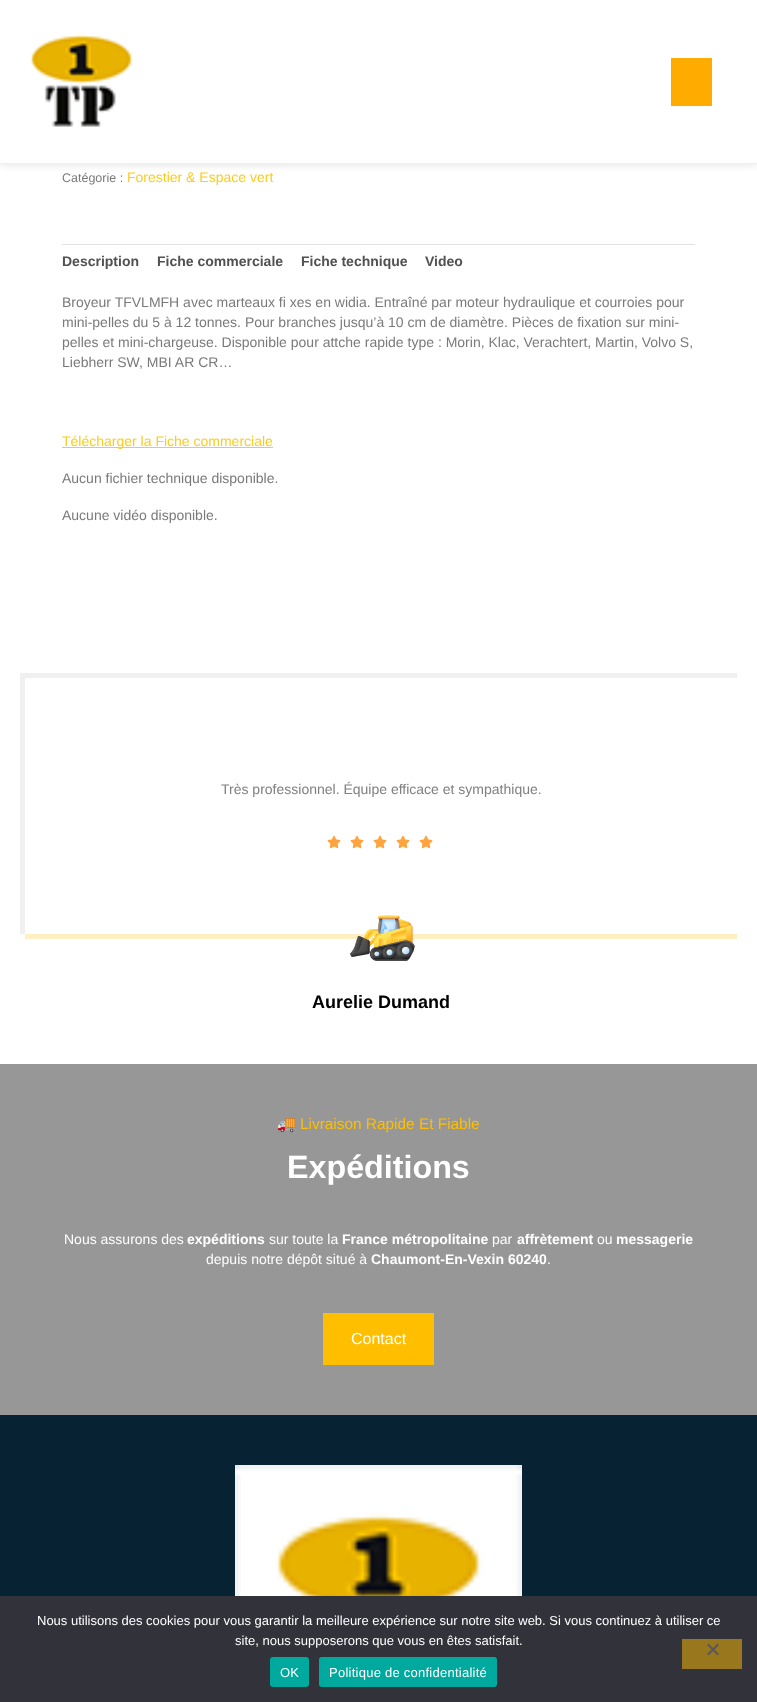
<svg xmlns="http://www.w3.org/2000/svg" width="757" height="1702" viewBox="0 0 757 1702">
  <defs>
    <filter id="blur1" x="-50%" y="-200%" width="200%" height="500%"><feGaussianBlur stdDeviation="5"/></filter>
    <clipPath id="clip1"><rect x="20" y="673" width="717" height="341"/></clipPath>
  </defs>
  <rect width="100%" height="100%" fill="#ffffff"/>
  <rect x="0" y="0" width="757" height="164" fill="#000000" fill-opacity="0.12" filter="url(#blur1)"/>
  <rect x="0" y="0" width="757" height="163" fill="#ffffff"/>
  <rect x="0" y="163" width="757" height="1" fill="#efefef"/>
  <image x="30" y="34" width="103" height="93" href="img1.png"/>
  <rect x="671" y="58" width="41" height="48" fill="#ffab00"/>
  <text x="62" y="182" font-family="Liberation Sans" font-size="12.5" fill="#7a7a7a">Catégorie :</text>
  <text x="127" y="182" font-family="Liberation Sans" font-size="14" fill="#facc21">Forestier &amp; Espace vert</text>
  <rect x="62" y="244" width="633" height="1" fill="#e2e2e2"/>
  <text x="62" y="266" font-family="Liberation Sans" font-size="14" font-weight="bold" fill="#515151">Description</text>
  <text x="157" y="266" font-family="Liberation Sans" font-size="14" font-weight="bold" fill="#515151">Fiche commerciale</text>
  <text x="301" y="266" font-family="Liberation Sans" font-size="14" font-weight="bold" fill="#515151">Fiche technique</text>
  <text x="425" y="266" font-family="Liberation Sans" font-size="14" font-weight="bold" fill="#515151">Video</text>
  <text x="62" y="307" font-family="Liberation Sans" font-size="14" fill="#7a7a7a">Broyeur TFVLMFH avec marteaux fi xes en widia. Entraîné par moteur hydraulique et courroies pour</text>
  <text x="62" y="327" font-family="Liberation Sans" font-size="14" fill="#7a7a7a">mini-pelles du 5 à 12 tonnes. Pour branches jusqu’à 10 cm de diamètre. Pièces de fixation sur mini-</text>
  <text x="62" y="347" font-family="Liberation Sans" font-size="14" fill="#7a7a7a">pelles et mini-chargeuse. Disponible pour attche rapide type : Morin, Klac, Verachtert, Martin, Volvo S,</text>
  <text x="62" y="367" font-family="Liberation Sans" font-size="14" fill="#7a7a7a">Liebherr SW, MBI AR CR…</text>
  <rect x="62" y="447" width="211" height="1" fill="#facc21"/>
  <text x="62" y="446" font-family="Liberation Sans" font-size="14" fill="#facc21">Télécharger la Fiche commerciale</text>
  <text x="62" y="483" font-family="Liberation Sans" font-size="14" fill="#7a7a7a">Aucun fichier technique disponible.</text>
  <text x="62" y="520" font-family="Liberation Sans" font-size="14" fill="#7a7a7a">Aucune vidéo disponible.</text>
  <g clip-path="url(#clip1)">
    <path d="M25 934V939H742V678H737V934Z" fill="#fff0c4"/>
  </g>
  <rect x="20" y="673" width="717" height="5" fill="#f0f0f0"/>
  <rect x="20" y="673" width="5" height="261" fill="#f0f0f0"/>
  <text x="221" y="794" font-family="Liberation Sans" font-size="14" fill="#808080">Très professionnel. Équipe efficace et sympathique.</text>
  <image x="327" y="835" width="14" height="14" href="img2.png"/>
  <image x="350" y="835" width="14" height="14" href="img2.png"/>
  <image x="373" y="835" width="14" height="14" href="img2.png"/>
  <image x="396" y="835" width="14" height="14" href="img2.png"/>
  <image x="419" y="835" width="14" height="14" href="img2.png"/>
  <image x="349" y="915" width="66" height="46" href="img3.png"/>
  <text x="312" y="1008" font-family="Liberation Sans" font-size="18" font-weight="bold" fill="#000000">Aurelie Dumand</text>
  <rect x="0" y="1064" width="757" height="351" fill="#979797"/>
  <text x="277" y="1129" font-family="Noto Color Emoji" font-size="15.4" fill="#ffbe00">🚚</text>
  <text x="300" y="1129" font-family="Liberation Sans" font-size="15.4" fill="#ffbe00">Livraison Rapide Et Fiable</text>
  <text x="287" y="1178" font-family="Liberation Sans" font-size="32.25" font-weight="bold" fill="#ffffff">Expéditions</text>
  <text x="64" y="1244" font-family="Liberation Sans" font-size="14" fill="#ffffff">Nous assurons des</text>
  <text x="187" y="1244" font-family="Liberation Sans" font-size="14" font-weight="bold" fill="#ffffff">expéditions</text>
  <text x="269" y="1244" font-family="Liberation Sans" font-size="14" fill="#ffffff">sur toute la</text>
  <text x="342" y="1244" font-family="Liberation Sans" font-size="14" font-weight="bold" fill="#ffffff">France métropolitaine</text>
  <text x="492" y="1244" font-family="Liberation Sans" font-size="14" fill="#ffffff">par</text>
  <text x="517" y="1244" font-family="Liberation Sans" font-size="14" font-weight="bold" fill="#ffffff">affrètement</text>
  <text x="597" y="1244" font-family="Liberation Sans" font-size="14" fill="#ffffff">ou</text>
  <text x="616" y="1244" font-family="Liberation Sans" font-size="14" font-weight="bold" fill="#ffffff">messagerie</text>
  <text x="206" y="1264" font-family="Liberation Sans" font-size="14" fill="#ffffff">depuis notre dépôt situé à</text>
  <text x="371" y="1264" font-family="Liberation Sans" font-size="14" font-weight="bold" fill="#ffffff">Chaumont-En-Vexin 60240</text>
  <text x="547" y="1264" font-family="Liberation Sans" font-size="14" fill="#ffffff">.</text>
  <rect x="323" y="1313" width="111" height="52" fill="#ffbe00"/>
  <text x="351" y="1344" font-family="Liberation Sans" font-size="16" fill="#ffffff">Contact</text>
  <rect x="0" y="1415" width="757" height="181" fill="#062233"/>
  <image x="235" y="1465" width="287" height="131" href="img4.png"/>
  <rect x="0" y="1596" width="757" height="106" fill="#32323a"/>
  <text x="37" y="1625" font-family="Liberation Sans" font-size="13" fill="#ffffff">Nous utilisons des cookies pour vous garantir la meilleure expérience sur notre site web. Si vous continuez à utiliser ce</text>
  <text x="235" y="1645" font-family="Liberation Sans" font-size="13" fill="#ffffff">site, nous supposerons que vous en êtes satisfait.</text>
  <rect x="682" y="1639" width="60" height="30" fill="#99781d"/>
  <path d="M717.5 1643.5L719 1645L708.5 1655.5L707 1654Z" fill="#59595d"/>
  <path d="M707 1645L708.5 1643.5L719 1654L717.5 1655.5Z" fill="#59595d"/>
  <rect x="270" y="1657" width="39" height="30" rx="3" fill="#00a99d"/>
  <text x="280" y="1677" font-family="Liberation Sans" font-size="13" letter-spacing="0.25" fill="#ffffff">OK</text>
  <rect x="319" y="1657" width="178" height="30" rx="3" fill="#00a99d"/>
  <text x="329" y="1677" font-family="Liberation Sans" font-size="13" letter-spacing="0.25" fill="#ffffff">Politique de confidentialité</text>
</svg>
